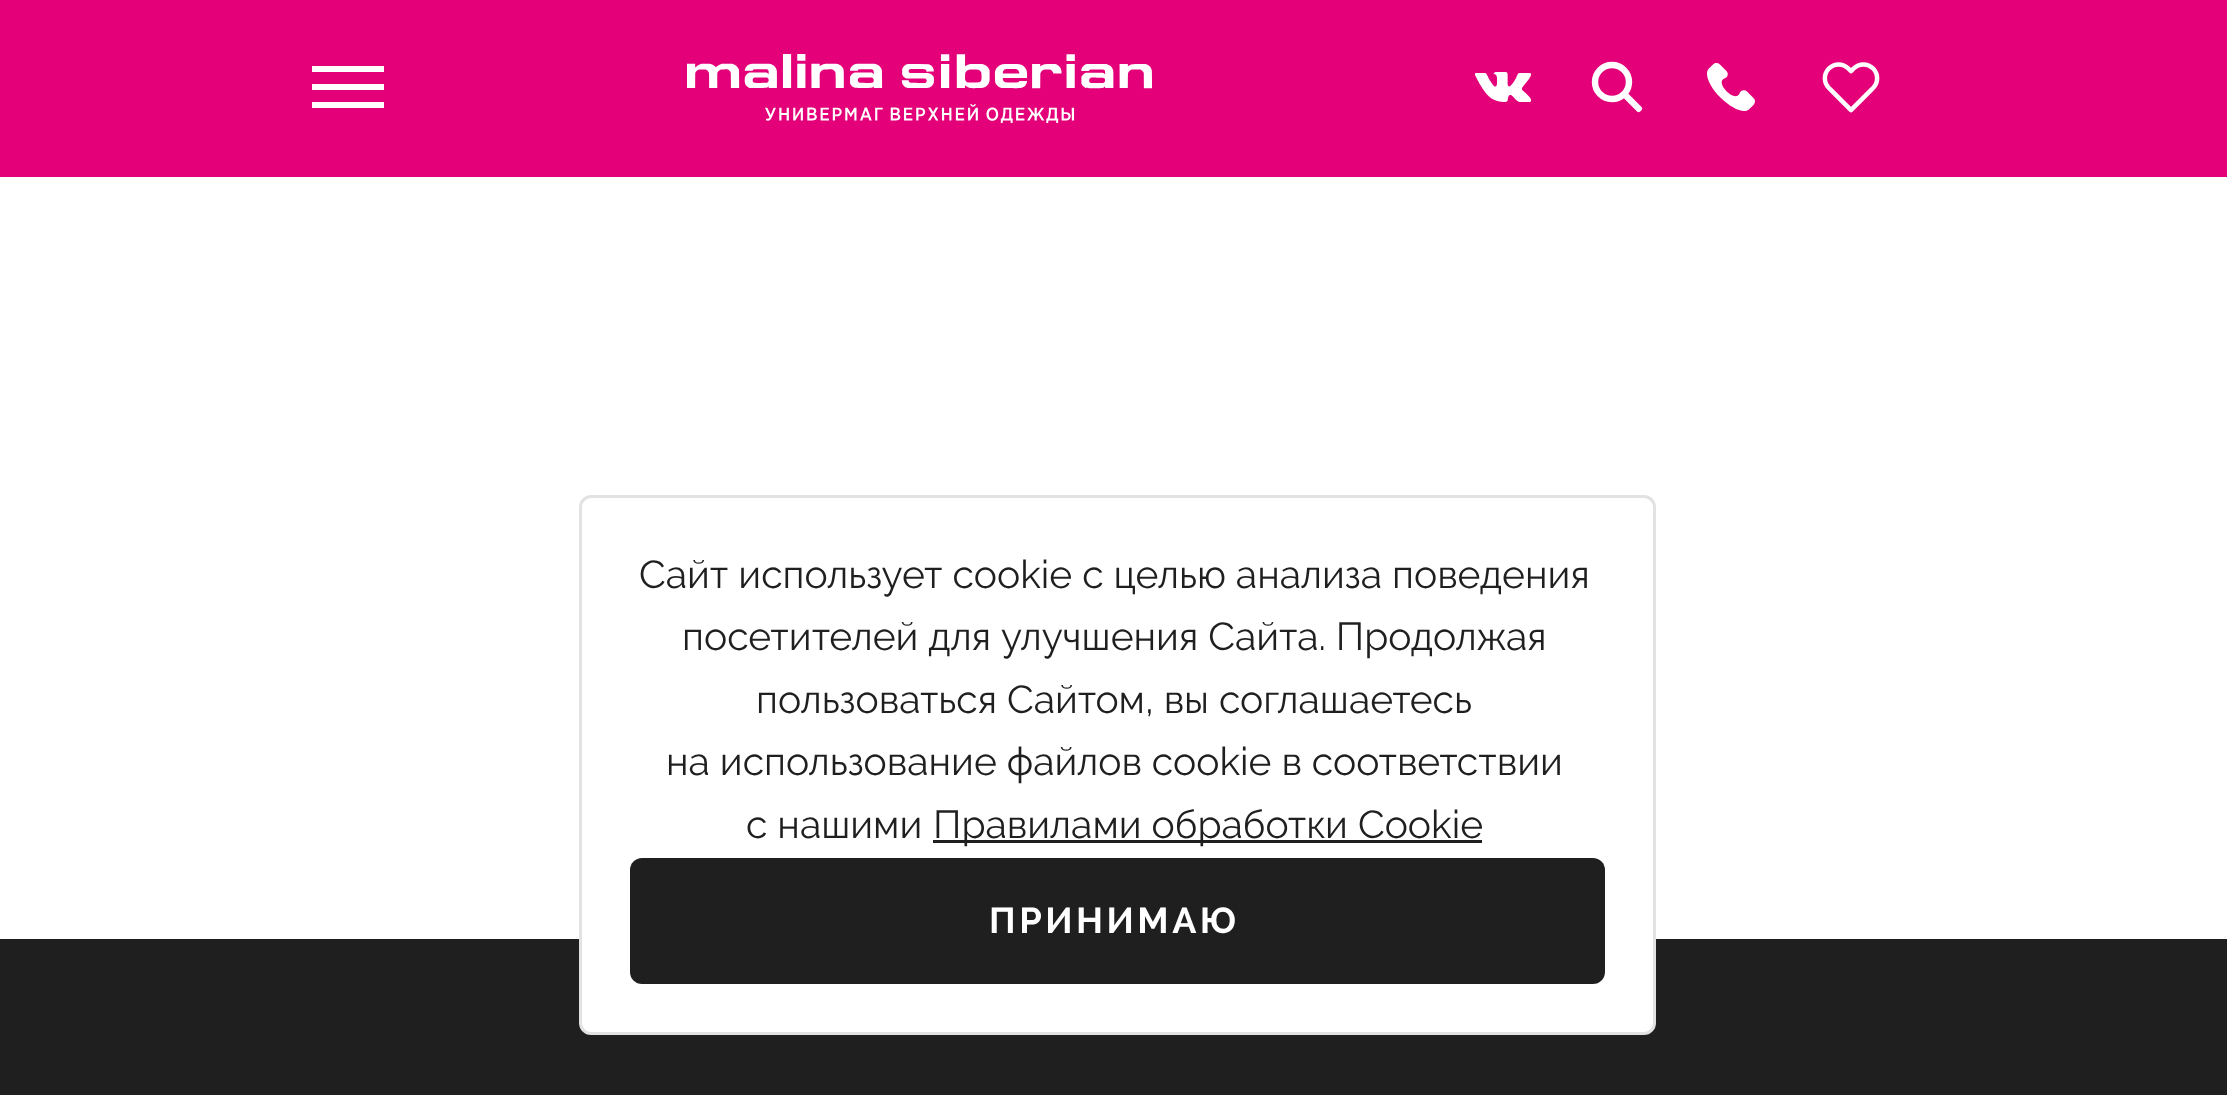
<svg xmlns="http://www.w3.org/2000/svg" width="2227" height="1095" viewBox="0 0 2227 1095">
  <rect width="100%" height="100%" fill="#ffffff"/>
  <rect x="0" y="0" width="2227" height="177" fill="#e30079"/>
  <rect x="312" y="66" width="72" height="6" fill="#ffffff"/>
  <rect x="312" y="84" width="72" height="6" fill="#ffffff"/>
  <rect x="312" y="102" width="72" height="6" fill="#ffffff"/>
  <image x="687" y="54" width="465" height="69" href="img1.png"/>
  <image x="1474" y="72" width="58" height="30" href="img2.png"/>
  <image x="1591" y="61" width="52" height="52" href="img3.png"/>
  <image x="1707" y="63" width="48" height="48" href="img4.png"/>
  <image x="1822" y="62" width="58" height="51" href="img5.png"/>
  <rect x="0" y="939" width="2227" height="156" fill="#1f1f1f"/>
  <rect x="580.5" y="496.5" width="1074" height="537" rx="10.5" fill="#ffffff" stroke="#e2e2e2" stroke-width="3"/>
  <text x="639" y="588" font-family="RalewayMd" font-size="39" fill="#1f1f1f">Сайт использует cookie с целью анализа поведения</text>
  <text x="682" y="650" font-family="RalewayMd" font-size="39" fill="#1f1f1f">посетителей для улучшения Сайта. Продолжая</text>
  <text x="756" y="713" font-family="RalewayMd" font-size="39" fill="#1f1f1f">пользоваться Сайтом, вы соглашаетесь</text>
  <text x="666" y="775" font-family="RalewayMd" font-size="39" fill="#1f1f1f">на использование файлов cookie в соответствии</text>
  <text x="746" y="838" font-family="RalewayMd" font-size="39" fill="#1f1f1f">с нашими</text>
  <rect x="933" y="840" width="549" height="3" fill="#1f1f1f"/>
  <text x="933" y="838" font-family="RalewayMd" font-size="39" fill="#1f1f1f">Правилами обработки Cookie</text>
  <rect x="630" y="858" width="975" height="126" rx="12" fill="#1f1f1f"/>
  <text x="989" y="933" font-family="RalewayMd" font-size="36" font-weight="bold" letter-spacing="3.5" fill="#ffffff">ПРИНИМАЮ</text>
</svg>
